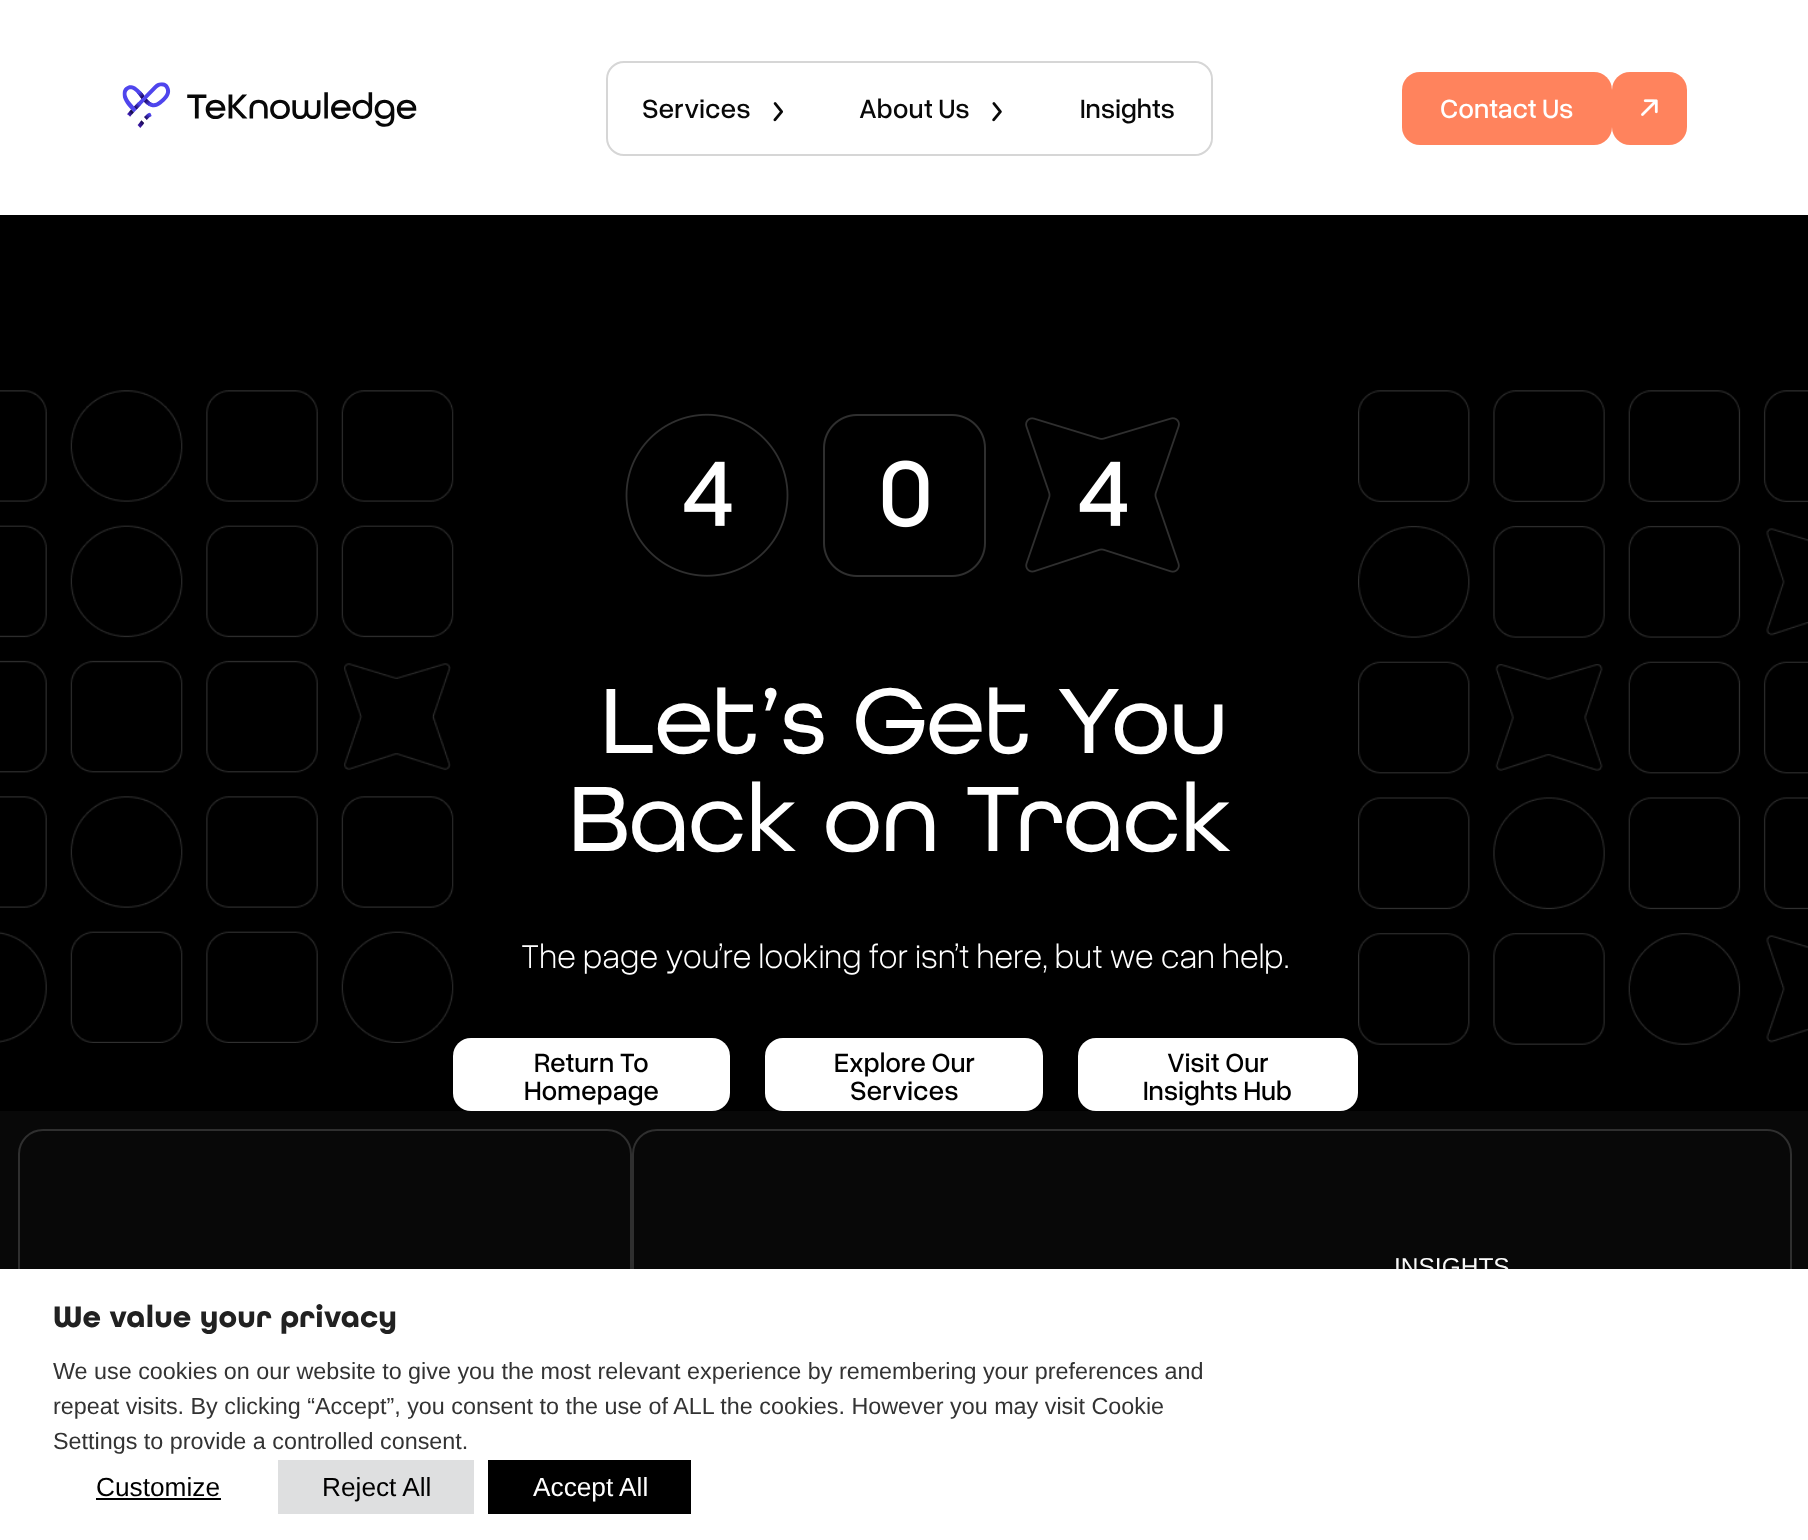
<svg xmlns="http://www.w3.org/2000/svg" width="1808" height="1540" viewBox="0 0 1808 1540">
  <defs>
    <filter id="blur1" x="-50%" y="-200%" width="200%" height="500%"><feGaussianBlur stdDeviation="9"/></filter>
  </defs>
  <rect width="100%" height="100%" fill="#000000"/>
  <rect x="0" y="0" width="1808" height="215" fill="#ffffff"/>
  <image x="122" y="82" width="295" height="46" href="img1.png"/>
  <rect x="607" y="62" width="605" height="93" rx="17" fill="none" stroke="#d6d6d6" stroke-width="2"/>
  <text x="642" y="118" font-family="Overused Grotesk" font-size="28" font-weight="500" fill="#080808">Services</text>
  <image x="773" y="102" width="10" height="20" href="img2.png"/>
  <text x="859" y="118" font-family="Overused Grotesk" font-size="28" font-weight="500" fill="#080808">About Us</text>
  <image x="992" y="102" width="10" height="20" href="img3.png"/>
  <rect x="1044" y="64" width="166" height="89" rx="17" fill="none" stroke="#ffffff" stroke-width="2"/>
  <text x="1080" y="118" font-family="Overused Grotesk" font-size="28" font-weight="500" fill="#080808">Insights</text>
  <rect x="1402" y="72" width="210" height="73" rx="18" fill="#ff835d"/>
  <text x="1440" y="118" font-family="Overused Grotesk" font-size="28" font-weight="500" fill="#ffffff">Contact Us</text>
  <rect x="1612" y="72" width="75" height="73" rx="18" fill="#ff835d"/>
  <image x="1641" y="99" width="17" height="17" href="img4.png"/>
  <image x="0" y="390" width="454" height="653" href="img5.png"/>
  <image x="625" y="413" width="555" height="164" href="img6.png"/>
  <text x="600" y="753" font-family="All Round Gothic" font-size="98" fill="#ffffff">Let’s Get You</text>
  <text x="568" y="851" font-family="All Round Gothic" font-size="98" fill="#ffffff">Back on Track</text>
  <text x="521" y="968" font-family="Overused Grotesk" font-size="35" font-weight="300" fill="#ffffff">The page you’re looking for isn’t here, but we can help.</text>
  <rect x="453" y="1038" width="277" height="73" rx="18" fill="#ffffff"/>
  <text x="534" y="1072" font-family="Overused Grotesk" font-size="28" font-weight="500" fill="#000000">Return To</text>
  <text x="524" y="1100" font-family="Overused Grotesk" font-size="28" font-weight="500" fill="#000000">Homepage</text>
  <rect x="765" y="1038" width="278" height="73" rx="18" fill="#ffffff"/>
  <text x="834" y="1072" font-family="Overused Grotesk" font-size="28" font-weight="500" fill="#000000">Explore Our</text>
  <text x="850" y="1100" font-family="Overused Grotesk" font-size="28" font-weight="500" fill="#000000">Services</text>
  <rect x="1078" y="1038" width="280" height="73" rx="18" fill="#ffffff"/>
  <text x="1167" y="1072" font-family="Overused Grotesk" font-size="28" font-weight="500" fill="#000000">Visit Our</text>
  <text x="1143" y="1100" font-family="Overused Grotesk" font-size="28" font-weight="500" fill="#000000">Insights Hub</text>
  <image x="1358" y="390" width="450" height="655" href="img7.png"/>
  <rect x="0" y="1111" width="1808" height="158" fill="#080808"/>
  <rect x="19" y="1130" width="612" height="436" rx="24" fill="none" stroke="#2f2f2f" stroke-width="2"/>
  <rect x="633" y="1130" width="1158" height="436" rx="24" fill="none" stroke="#2f2f2f" stroke-width="2"/>
  <text x="1394" y="1275" font-family="Liberation Sans" font-size="24.5" fill="#ffffff">INSIGHTS</text>
  <rect x="0" y="1278" width="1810" height="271" fill="#000000" fill-opacity="0.5" filter="url(#blur1)"/>
  <rect x="0" y="1269" width="1808" height="271" fill="#ffffff"/>
  <text x="53" y="1327" font-family="All Round Gothic" font-size="31.5" font-weight="bold" fill="#212121">We value your privacy</text>
  <text x="53" y="1379" font-family="Liberation Sans" font-size="23.35" fill="#333333">We use cookies on our website to give you the most relevant experience by remembering your preferences and</text>
  <text x="53" y="1414" font-family="Liberation Sans" font-size="23.35" fill="#333333">repeat visits. By clicking “Accept”, you consent to the use of ALL the cookies. However you may visit Cookie</text>
  <text x="53" y="1449" font-family="Liberation Sans" font-size="23.35" fill="#333333">Settings to provide a controlled consent.</text>
  <text x="96" y="1496" font-family="Liberation Sans" font-size="26.25" fill="#000000">Customize</text>
  <rect x="96" y="1498" width="125" height="2" fill="#000000"/>
  <rect x="278" y="1460" width="196" height="54" fill="#dedfe0"/>
  <text x="322" y="1496" font-family="Liberation Sans" font-size="26.25" fill="#000000">Reject All</text>
  <rect x="488" y="1460" width="203" height="54" fill="#000000"/>
  <text x="533" y="1496" font-family="Liberation Sans" font-size="26.25" fill="#ffffff">Accept All</text>
</svg>
